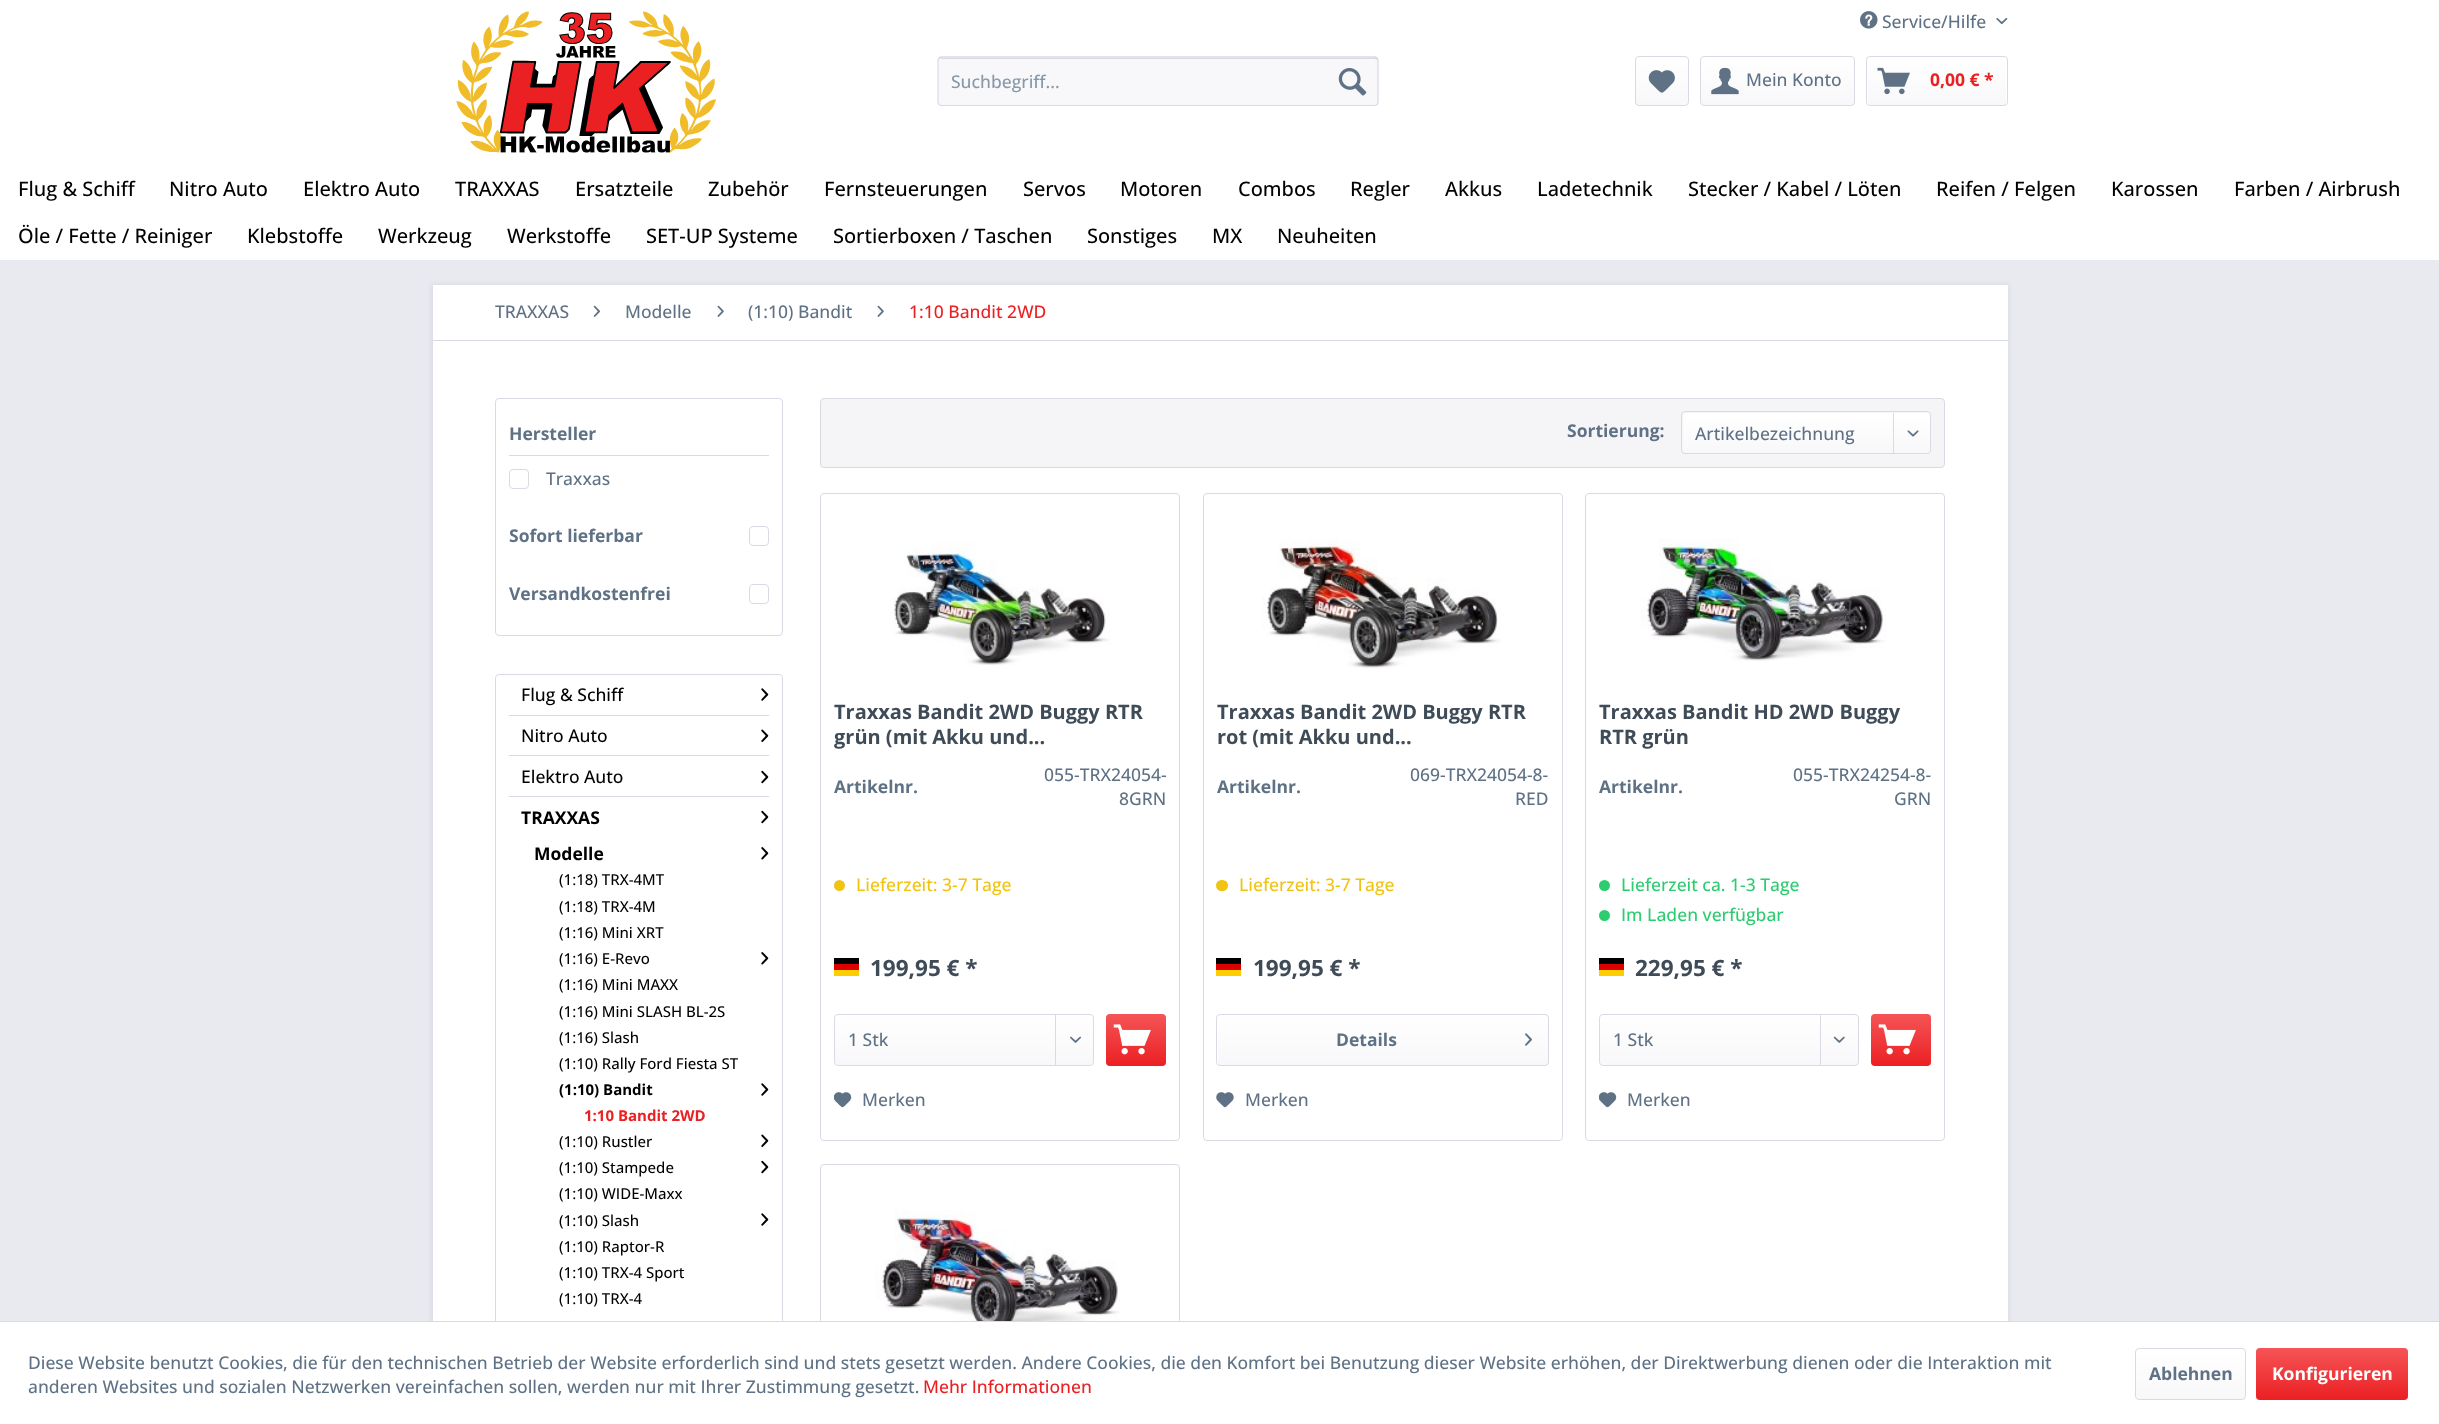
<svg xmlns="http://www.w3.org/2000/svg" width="2439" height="1424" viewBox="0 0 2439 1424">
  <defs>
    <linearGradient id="g1" gradientUnits="userSpaceOnUse" x1="1662" y1="58" x2="1662" y2="105"><stop offset="0" stop-color="#ffffff"/><stop offset="1" stop-color="#f8f8fa"/></linearGradient>
    <linearGradient id="g2" gradientUnits="userSpaceOnUse" x1="1778" y1="57" x2="1778" y2="105"><stop offset="0" stop-color="#ffffff"/><stop offset="1" stop-color="#f8f8fa"/></linearGradient>
    <linearGradient id="g3" gradientUnits="userSpaceOnUse" x1="1937" y1="57" x2="1937" y2="105"><stop offset="0" stop-color="#ffffff"/><stop offset="1" stop-color="#f8f8fa"/></linearGradient>
    <filter id="blur1" x="-50%" y="-200%" width="200%" height="500%"><feGaussianBlur stdDeviation="2.5"/></filter>
    <linearGradient id="g4" gradientUnits="userSpaceOnUse" x1="1806" y1="413" x2="1806" y2="453"><stop offset="0" stop-color="#ffffff"/><stop offset="1" stop-color="#f8f8fa"/></linearGradient>
    <linearGradient id="g5" gradientUnits="userSpaceOnUse" x1="964" y1="1015" x2="964" y2="1065"><stop offset="0" stop-color="#ffffff"/><stop offset="1" stop-color="#f8f8fa"/></linearGradient>
    <linearGradient id="g6" gradientUnits="userSpaceOnUse" x1="1136" y1="1014" x2="1136" y2="1066"><stop offset="0" stop-color="#f55456"/><stop offset="1" stop-color="#eb2023"/></linearGradient>
    <linearGradient id="g7" gradientUnits="userSpaceOnUse" x1="1383" y1="1015" x2="1383" y2="1065"><stop offset="0" stop-color="#ffffff"/><stop offset="1" stop-color="#f8f8fa"/></linearGradient>
    <linearGradient id="g8" gradientUnits="userSpaceOnUse" x1="1729" y1="1015" x2="1729" y2="1065"><stop offset="0" stop-color="#ffffff"/><stop offset="1" stop-color="#f8f8fa"/></linearGradient>
    <linearGradient id="g9" gradientUnits="userSpaceOnUse" x1="1901" y1="1014" x2="1901" y2="1066"><stop offset="0" stop-color="#f55456"/><stop offset="1" stop-color="#eb2023"/></linearGradient>
    <linearGradient id="g10" gradientUnits="userSpaceOnUse" x1="2191" y1="1349" x2="2191" y2="1399"><stop offset="0" stop-color="#ffffff"/><stop offset="1" stop-color="#f8f8fa"/></linearGradient>
    <linearGradient id="g11" gradientUnits="userSpaceOnUse" x1="2332" y1="1348" x2="2332" y2="1400"><stop offset="0" stop-color="#f55456"/><stop offset="1" stop-color="#eb2023"/></linearGradient>
  </defs>
  <rect width="100%" height="100%" fill="#e9e9f0"/>
  <rect x="0" y="0" width="2439" height="260" fill="#ffffff"/>
  <image x="1860" y="11" width="18" height="18" href="img1.png"/>
  <text x="1882" y="28" font-family="Open Sans" font-size="17.5" font-weight="500" fill="#5f7285">Service/Hilfe</text>
  <image x="1996" y="17" width="12" height="8" href="img2.png"/>
  <image x="456" y="11" width="260" height="142" href="img3.png"/>
  <rect x="938" y="56" width="441" height="50" rx="4" fill="#f8f8fa"/>
  <path d="M941 59H1375C1376 59 1378 60 1378 61C1378 59 1377 58 1376 58H942L940 59L939 61C939 60 940 59 941 59Z" fill="#dadae5"/>
  <path d="M939 58L941 57H1375L1377 58" fill="none" stroke="#cbcbdb" stroke-width="1.2"/>
  <path d="M1377 58L1378 60V102.5L1377 104.5L1375 105.5H941L939 104.5L938 102.5V60L939 58" fill="none" stroke="#dadae5" stroke-width="1.2"/>
  <text x="951" y="88" font-family="Open Sans" font-size="17.5" font-weight="500" fill="#8798a9">Suchbegriff...</text>
  <image x="1338" y="68" width="29" height="28" href="img4.png"/>
  <rect x="1636" y="58" width="52" height="47" rx="2.5" fill="url(#g1)"/>
  <rect x="1635.5" y="56.5" width="53" height="49" rx="3.5" fill="none" stroke="#dadae5"/>
  <image x="1648" y="70" width="27" height="23" href="img5.png"/>
  <rect x="1701" y="58" width="153" height="47" rx="2.5" fill="url(#g2)"/>
  <rect x="1700.5" y="56.5" width="154" height="49" rx="3.5" fill="none" stroke="#dadae5"/>
  <image x="1711" y="67" width="28" height="28" href="img6.png"/>
  <text x="1746" y="86" font-family="Open Sans" font-size="17.5" font-weight="500" fill="#5f7285">Mein Konto</text>
  <rect x="1868" y="58" width="138" height="47" rx="2.5" fill="url(#g3)"/>
  <rect x="1866.5" y="56.5" width="141" height="49" rx="3.5" fill="none" stroke="#dadae5"/>
  <image x="1877" y="67" width="33" height="28" href="img7.png"/>
  <text x="1930" y="86" font-family="Open Sans" font-size="17.5" font-weight="bold" fill="#eb2023">0,00 € *</text>
  <text x="18" y="196" font-family="Open Sans" font-size="20" font-weight="500" fill="#000000">Flug &amp; Schiff</text>
  <text x="169" y="196" font-family="Open Sans" font-size="20" font-weight="500" fill="#000000">Nitro Auto</text>
  <text x="303" y="196" font-family="Open Sans" font-size="20" font-weight="500" fill="#000000">Elektro Auto</text>
  <text x="455" y="196" font-family="Open Sans" font-size="20" font-weight="500" fill="#000000">TRAXXAS</text>
  <text x="575" y="196" font-family="Open Sans" font-size="20" font-weight="500" fill="#000000">Ersatzteile</text>
  <text x="708" y="196" font-family="Open Sans" font-size="20" font-weight="500" fill="#000000">Zubehör</text>
  <text x="824" y="196" font-family="Open Sans" font-size="20" font-weight="500" fill="#000000">Fernsteuerungen</text>
  <text x="1023" y="196" font-family="Open Sans" font-size="20" font-weight="500" fill="#000000">Servos</text>
  <text x="1120" y="196" font-family="Open Sans" font-size="20" font-weight="500" fill="#000000">Motoren</text>
  <text x="1238" y="196" font-family="Open Sans" font-size="20" font-weight="500" fill="#000000">Combos</text>
  <text x="1350" y="196" font-family="Open Sans" font-size="20" font-weight="500" fill="#000000">Regler</text>
  <text x="1445" y="196" font-family="Open Sans" font-size="20" font-weight="500" fill="#000000">Akkus</text>
  <text x="1537" y="196" font-family="Open Sans" font-size="20" font-weight="500" fill="#000000">Ladetechnik</text>
  <text x="1688" y="196" font-family="Open Sans" font-size="20" font-weight="500" fill="#000000">Stecker / Kabel / Löten</text>
  <text x="1936" y="196" font-family="Open Sans" font-size="20" font-weight="500" fill="#000000">Reifen / Felgen</text>
  <text x="2111" y="196" font-family="Open Sans" font-size="20" font-weight="500" fill="#000000">Karossen</text>
  <text x="2234" y="196" font-family="Open Sans" font-size="20" font-weight="500" fill="#000000">Farben / Airbrush</text>
  <text x="18" y="243" font-family="Open Sans" font-size="20" font-weight="500" fill="#000000">Öle / Fette / Reiniger</text>
  <text x="247" y="243" font-family="Open Sans" font-size="20" font-weight="500" fill="#000000">Klebstoffe</text>
  <text x="378" y="243" font-family="Open Sans" font-size="20" font-weight="500" fill="#000000">Werkzeug</text>
  <text x="507" y="243" font-family="Open Sans" font-size="20" font-weight="500" fill="#000000">Werkstoffe</text>
  <text x="646" y="243" font-family="Open Sans" font-size="20" font-weight="500" fill="#000000">SET-UP Systeme</text>
  <text x="833" y="243" font-family="Open Sans" font-size="20" font-weight="500" fill="#000000">Sortierboxen / Taschen</text>
  <text x="1087" y="243" font-family="Open Sans" font-size="20" font-weight="500" fill="#000000">Sonstiges</text>
  <text x="1212" y="243" font-family="Open Sans" font-size="20" font-weight="500" fill="#000000">MX</text>
  <text x="1277" y="243" font-family="Open Sans" font-size="20" font-weight="500" fill="#000000">Neuheiten</text>
  <rect x="431" y="284" width="1578" height="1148" fill="#dadae5" filter="url(#blur1)"/>
  <rect x="433" y="285" width="1575" height="1036" fill="#ffffff"/>
  <rect x="433" y="340" width="1575" height="1" fill="#dadae5"/>
  <text x="495" y="318" font-family="Open Sans" font-size="17.5" font-weight="500" fill="#5f7285">TRAXXAS</text>
  <image x="593" y="305" width="7" height="12" href="img8.png"/>
  <text x="625" y="318" font-family="Open Sans" font-size="17.5" font-weight="500" fill="#5f7285">Modelle</text>
  <image x="717" y="305" width="7" height="12" href="img9.png"/>
  <text x="748" y="318" font-family="Open Sans" font-size="17.5" font-weight="500" fill="#5f7285">(1:10) Bandit</text>
  <image x="877" y="305" width="7" height="12" href="img9.png"/>
  <text x="909" y="318" font-family="Open Sans" font-size="17.5" font-weight="500" fill="#eb2023">1:10 Bandit 2WD</text>
  <rect x="495.5" y="398.5" width="287" height="237" rx="3.5" fill="none" stroke="#dadae5"/>
  <rect x="509" y="455" width="260" height="1" fill="#dadae5"/>
  <text x="509" y="440" font-family="Open Sans" font-size="17.5" font-weight="bold" fill="#5f7285">Hersteller</text>
  <rect x="509.5" y="469.5" width="19" height="19" rx="3.5" fill="none" stroke="#dadae5"/>
  <text x="546" y="485" font-family="Open Sans" font-size="17.5" font-weight="500" fill="#5f7285">Traxxas</text>
  <text x="509" y="542" font-family="Open Sans" font-size="17.5" font-weight="bold" fill="#5f7285">Sofort lieferbar</text>
  <rect x="749.5" y="526.5" width="19" height="19" rx="3.5" fill="none" stroke="#dadae5"/>
  <text x="509" y="600" font-family="Open Sans" font-size="17.5" font-weight="bold" fill="#5f7285">Versandkostenfrei</text>
  <rect x="749.5" y="584.5" width="19" height="19" rx="3.5" fill="none" stroke="#dadae5"/>
  <rect x="495.5" y="674.5" width="287" height="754" rx="3.5" fill="none" stroke="#dadae5"/>
  <rect x="509" y="715" width="260" height="1" fill="#dadae5"/>
  <text x="521" y="701" font-family="Open Sans" font-size="17.5" font-weight="500" fill="#000000">Flug &amp; Schiff</text>
  <image x="761" y="688" width="8" height="13" href="img10.png"/>
  <rect x="509" y="755" width="260" height="1" fill="#dadae5"/>
  <text x="521" y="742" font-family="Open Sans" font-size="17.5" font-weight="500" fill="#000000">Nitro Auto</text>
  <image x="761" y="729" width="8" height="13" href="img11.png"/>
  <rect x="509" y="796" width="260" height="1" fill="#dadae5"/>
  <text x="521" y="783" font-family="Open Sans" font-size="17.5" font-weight="500" fill="#000000">Elektro Auto</text>
  <image x="761" y="770" width="8" height="14" href="img12.png"/>
  <text x="521" y="824" font-family="Open Sans" font-size="17.5" font-weight="bold" fill="#000000">TRAXXAS</text>
  <image x="761" y="810" width="8" height="14" href="img12.png"/>
  <text x="534" y="860" font-family="Open Sans" font-size="17.5" font-weight="bold" fill="#000000">Modelle</text>
  <image x="761" y="847" width="8" height="13" href="img13.png"/>
  <text x="559" y="885" font-family="Open Sans" font-size="15" font-weight="500" fill="#000000">(1:18) TRX-4MT</text>
  <text x="559" y="912" font-family="Open Sans" font-size="15" font-weight="500" fill="#000000">(1:18) TRX-4M</text>
  <text x="559" y="938" font-family="Open Sans" font-size="15" font-weight="500" fill="#000000">(1:16) Mini XRT</text>
  <text x="559" y="964" font-family="Open Sans" font-size="15" font-weight="500" fill="#000000">(1:16) E-Revo</text>
  <image x="761" y="952" width="8" height="13" href="img13.png"/>
  <text x="559" y="990" font-family="Open Sans" font-size="15" font-weight="500" fill="#000000">(1:16) Mini MAXX</text>
  <text x="559" y="1017" font-family="Open Sans" font-size="15" font-weight="500" fill="#000000">(1:16) Mini SLASH BL-2S</text>
  <text x="559" y="1043" font-family="Open Sans" font-size="15" font-weight="500" fill="#000000">(1:16) Slash</text>
  <text x="559" y="1069" font-family="Open Sans" font-size="15" font-weight="500" fill="#000000">(1:10) Rally Ford Fiesta ST</text>
  <text x="559" y="1095" font-family="Open Sans" font-size="15" font-weight="bold" fill="#000000">(1:10) Bandit</text>
  <image x="761" y="1083" width="8" height="13" href="img10.png"/>
  <text x="584" y="1121" font-family="Open Sans" font-size="15" font-weight="bold" fill="#eb2023">1:10 Bandit 2WD</text>
  <text x="559" y="1147" font-family="Open Sans" font-size="15" font-weight="500" fill="#000000">(1:10) Rustler</text>
  <image x="761" y="1134" width="8" height="13" href="img11.png"/>
  <text x="559" y="1173" font-family="Open Sans" font-size="15" font-weight="500" fill="#000000">(1:10) Stampede</text>
  <image x="761" y="1160" width="8" height="14" href="img12.png"/>
  <text x="559" y="1199" font-family="Open Sans" font-size="15" font-weight="500" fill="#000000">(1:10) WIDE-Maxx</text>
  <text x="559" y="1226" font-family="Open Sans" font-size="15" font-weight="500" fill="#000000">(1:10) Slash</text>
  <image x="761" y="1213" width="8" height="13" href="img10.png"/>
  <text x="559" y="1252" font-family="Open Sans" font-size="15" font-weight="500" fill="#000000">(1:10) Raptor-R</text>
  <text x="559" y="1278" font-family="Open Sans" font-size="15" font-weight="500" fill="#000000">(1:10) TRX-4 Sport</text>
  <text x="559" y="1304" font-family="Open Sans" font-size="15" font-weight="500" fill="#000000">(1:10) TRX-4</text>
  <rect x="820.5" y="398.5" width="1124" height="69" rx="3.5" fill="#f5f5f8" stroke="#dadae5"/>
  <text x="1567" y="437" font-family="Open Sans" font-size="17.5" font-weight="bold" fill="#5f7285">Sortierung:</text>
  <rect x="1683" y="413" width="247" height="40" rx="2.5" fill="url(#g4)"/>
  <rect x="1681.5" y="411.5" width="249" height="42" rx="3.5" fill="none" stroke="#dadae5"/>
  <text x="1695" y="440" font-family="Open Sans" font-size="17.5" font-weight="500" fill="#5f7285">Artikelbezeichnung</text>
  <rect x="1893" y="413" width="1" height="41" fill="#dadae5"/>
  <image x="1907" y="430" width="12" height="7" href="img14.png"/>
  <rect x="820.5" y="493.5" width="359" height="647" rx="3.5" fill="none" stroke="#dadae5"/>
  <image x="890" y="541" width="220" height="124" href="img15.png"/>
  <text x="834" y="719" font-family="Open Sans" font-size="20" font-weight="bold" fill="#3f4c58">Traxxas Bandit 2WD Buggy RTR</text>
  <text x="834" y="744" font-family="Open Sans" font-size="20" font-weight="bold" fill="#3f4c58">grün (mit Akku und...</text>
  <text x="834" y="793" font-family="Open Sans" font-size="17.5" font-weight="bold" fill="#5f7285">Artikelnr.</text>
  <text x="1044" y="781" font-family="Open Sans" font-size="17.5" font-weight="500" fill="#5f7285">055-TRX24054-</text>
  <text x="1119" y="805" font-family="Open Sans" font-size="17.5" font-weight="500" fill="#5f7285">8GRN</text>
  <circle cx="839.5" cy="885.5" r="5.5" fill="#f1c40f"/>
  <text x="856" y="891" font-family="Open Sans" font-size="17.5" font-weight="500" fill="#f1c40f">Lieferzeit: 3-7 Tage</text>
  <rect x="834" y="970" width="25" height="6" fill="#ffce00"/>
  <rect x="834" y="958" width="25" height="6" fill="#000000"/>
  <rect x="834" y="964" width="25" height="6" fill="#dd0000"/>
  <text x="870" y="976" font-family="Open Sans" font-size="22.5" font-weight="bold" fill="#3f4c58">199,95 € *</text>
  <rect x="835" y="1015" width="258" height="50" rx="2.5" fill="url(#g5)"/>
  <rect x="834.5" y="1014.5" width="259" height="51" rx="3.5" fill="none" stroke="#dadae5"/>
  <text x="848" y="1046" font-family="Open Sans" font-size="17.5" font-weight="500" fill="#5f7285">1 Stk</text>
  <rect x="1055" y="1015" width="1" height="50" fill="#dadae5"/>
  <image x="1070" y="1036" width="11" height="7" href="img16.png"/>
  <rect x="1106" y="1014" width="60" height="52" rx="4" fill="url(#g6)"/>
  <image x="1113" y="1024" width="38" height="31" href="img17.png"/>
  <image x="834" y="1092" width="18" height="16" href="img18.png"/>
  <text x="862" y="1106" font-family="Open Sans" font-size="17.5" font-weight="500" fill="#5f7285">Merken</text>
  <rect x="1203.5" y="493.5" width="359" height="647" rx="3.5" fill="none" stroke="#dadae5"/>
  <image x="1262" y="538" width="239" height="131" href="img19.png"/>
  <text x="1217" y="719" font-family="Open Sans" font-size="20" font-weight="bold" fill="#3f4c58">Traxxas Bandit 2WD Buggy RTR</text>
  <text x="1217" y="744" font-family="Open Sans" font-size="20" font-weight="bold" fill="#3f4c58">rot (mit Akku und...</text>
  <text x="1217" y="793" font-family="Open Sans" font-size="17.5" font-weight="bold" fill="#5f7285">Artikelnr.</text>
  <text x="1410" y="781" font-family="Open Sans" font-size="17.5" font-weight="500" fill="#5f7285">069-TRX24054-8-</text>
  <text x="1515" y="805" font-family="Open Sans" font-size="17.5" font-weight="500" fill="#5f7285">RED</text>
  <rect x="1216" y="880" width="12" height="11" rx="5.5" fill="#f1c40f"/>
  <text x="1239" y="891" font-family="Open Sans" font-size="17.5" font-weight="500" fill="#f1c40f">Lieferzeit: 3-7 Tage</text>
  <rect x="1216" y="970" width="25" height="6" fill="#ffce00"/>
  <rect x="1216" y="958" width="25" height="6" fill="#000000"/>
  <rect x="1216" y="964" width="25" height="6" fill="#dd0000"/>
  <text x="1253" y="976" font-family="Open Sans" font-size="22.5" font-weight="bold" fill="#3f4c58">199,95 € *</text>
  <rect x="1218" y="1015" width="330" height="50" rx="2.5" fill="url(#g7)"/>
  <rect x="1216.5" y="1014.5" width="332" height="51" rx="3.5" fill="none" stroke="#dadae5"/>
  <text x="1336" y="1046" font-family="Open Sans" font-size="17.5" font-weight="bold" fill="#5f7285">Details</text>
  <image x="1525" y="1033" width="7" height="13" href="img20.png"/>
  <image x="1216" y="1092" width="18" height="16" href="img21.png"/>
  <text x="1245" y="1106" font-family="Open Sans" font-size="17.5" font-weight="500" fill="#5f7285">Merken</text>
  <rect x="1585.5" y="493.5" width="359" height="647" rx="3.5" fill="none" stroke="#dadae5"/>
  <image x="1640" y="538" width="246" height="123" href="img22.png"/>
  <text x="1599" y="719" font-family="Open Sans" font-size="20" font-weight="bold" fill="#3f4c58">Traxxas Bandit HD 2WD Buggy</text>
  <text x="1599" y="744" font-family="Open Sans" font-size="20" font-weight="bold" fill="#3f4c58">RTR grün</text>
  <text x="1599" y="793" font-family="Open Sans" font-size="17.5" font-weight="bold" fill="#5f7285">Artikelnr.</text>
  <text x="1793" y="781" font-family="Open Sans" font-size="17.5" font-weight="500" fill="#5f7285">055-TRX24254-8-</text>
  <text x="1894" y="805" font-family="Open Sans" font-size="17.5" font-weight="500" fill="#5f7285">GRN</text>
  <circle cx="1604.5" cy="885.5" r="5.5" fill="#2ecc71"/>
  <text x="1621" y="891" font-family="Open Sans" font-size="17.5" font-weight="500" fill="#2ecc71">Lieferzeit ca. 1-3 Tage</text>
  <circle cx="1604.5" cy="915.5" r="5.5" fill="#2ecc71"/>
  <text x="1621" y="921" font-family="Open Sans" font-size="17.5" font-weight="500" fill="#2ecc71">Im Laden verfügbar</text>
  <rect x="1599" y="970" width="25" height="6" fill="#ffce00"/>
  <rect x="1599" y="958" width="25" height="6" fill="#000000"/>
  <rect x="1599" y="964" width="25" height="6" fill="#dd0000"/>
  <text x="1635" y="976" font-family="Open Sans" font-size="22.5" font-weight="bold" fill="#3f4c58">229,95 € *</text>
  <rect x="1600" y="1015" width="258" height="50" rx="2.5" fill="url(#g8)"/>
  <rect x="1599.5" y="1014.5" width="259" height="51" rx="3.5" fill="none" stroke="#dadae5"/>
  <text x="1613" y="1046" font-family="Open Sans" font-size="17.5" font-weight="500" fill="#5f7285">1 Stk</text>
  <rect x="1820" y="1015" width="1" height="50" fill="#dadae5"/>
  <image x="1833" y="1036" width="12" height="7" href="img23.png"/>
  <rect x="1871" y="1014" width="60" height="52" rx="4" fill="url(#g9)"/>
  <image x="1878" y="1024" width="38" height="31" href="img17.png"/>
  <image x="1599" y="1092" width="18" height="16" href="img18.png"/>
  <text x="1627" y="1106" font-family="Open Sans" font-size="17.5" font-weight="500" fill="#5f7285">Merken</text>
  <rect x="820.5" y="1164.5" width="359" height="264" rx="3.5" fill="none" stroke="#dadae5"/>
  <image x="875" y="1210" width="245" height="111" href="img24.png"/>
  <rect x="0" y="1322" width="2439" height="102" fill="#ffffff"/>
  <rect x="0" y="1321" width="2439" height="1" fill="#dadae5"/>
  <text x="28" y="1369" font-family="Open Sans" font-size="17.5" font-weight="500" fill="#5f7285">Diese Website benutzt Cookies, die für den technischen Betrieb der Website erforderlich sind und stets gesetzt werden. Andere Cookies, die den Komfort bei Benutzung dieser Website erhöhen, der Direktwerbung dienen oder die Interaktion mit</text>
  <text x="28" y="1393" font-family="Open Sans" font-size="17.5" font-weight="500" fill="#5f7285">anderen Websites und sozialen Netzwerken vereinfachen sollen, werden nur mit Ihrer Zustimmung gesetzt.</text>
  <text x="923" y="1393" font-family="Open Sans" font-size="17.5" font-weight="500" fill="#eb2023">Mehr Informationen</text>
  <rect x="2136" y="1349" width="109" height="50" rx="2.5" fill="url(#g10)"/>
  <rect x="2135.5" y="1348.5" width="110" height="51" rx="3.5" fill="none" stroke="#dadae5"/>
  <text x="2149" y="1380" font-family="Open Sans" font-size="17.5" font-weight="bold" fill="#5f7285">Ablehnen</text>
  <rect x="2256" y="1348" width="152" height="52" rx="4" fill="url(#g11)"/>
  <text x="2272" y="1380" font-family="Open Sans" font-size="17.5" font-weight="bold" fill="#ffffff">Konfigurieren</text>
</svg>
